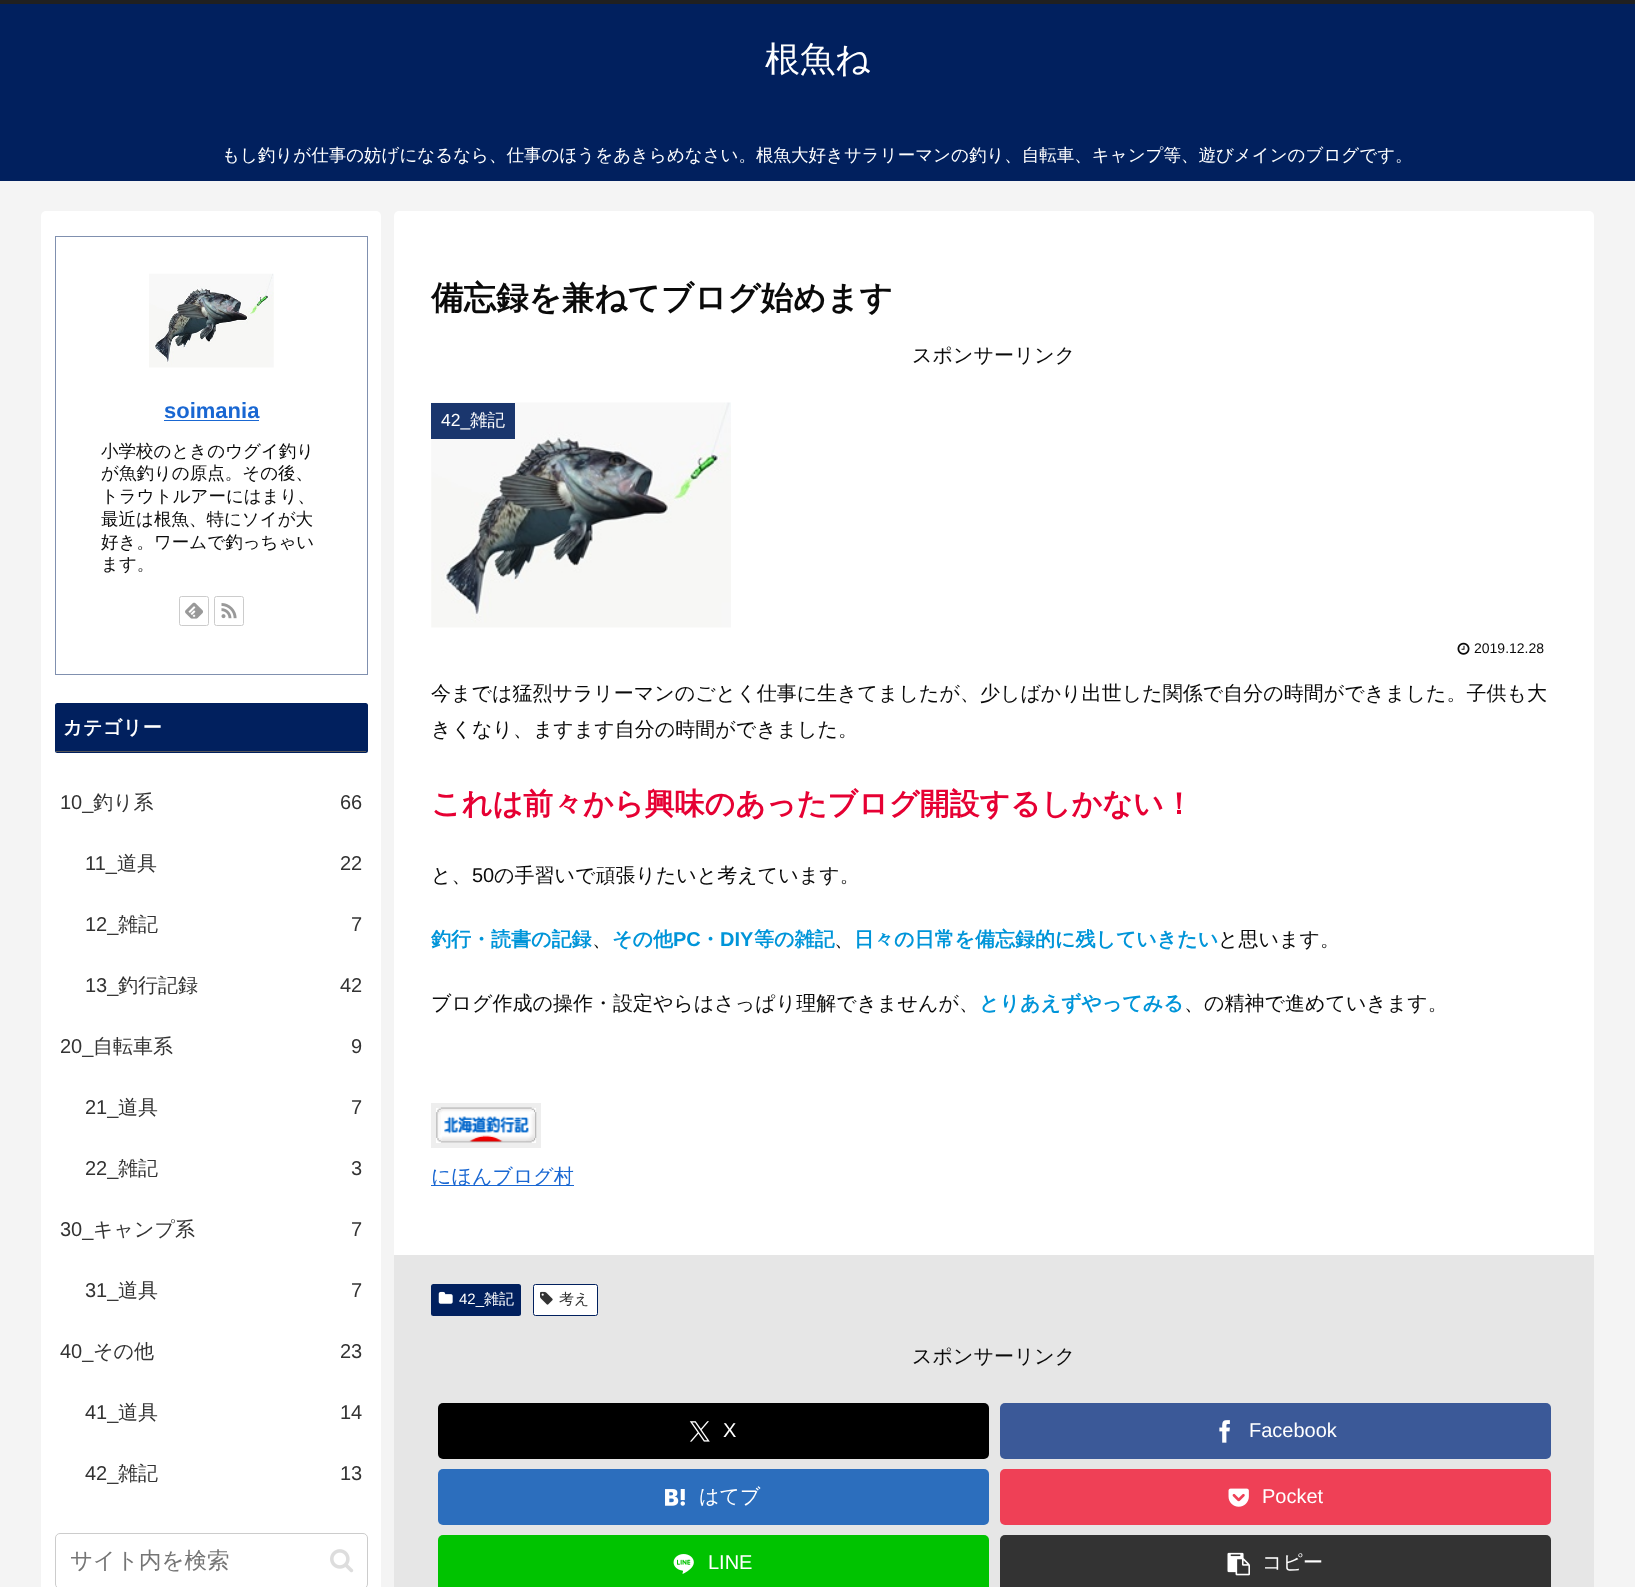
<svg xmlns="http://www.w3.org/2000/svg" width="1635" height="1587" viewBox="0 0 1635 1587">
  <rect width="100%" height="100%" fill="#f4f4f4"/>
  <rect x="0" y="4" width="1635" height="177" fill="#01205e"/>
  <rect x="0" y="0" width="1635" height="4" fill="#202020"/>
  <text x="765" y="71" font-family="WenQuanYi Zen Hei" font-size="35" font-weight="500" fill="#ffffff">根魚ね</text>
  <text x="222" y="161" font-family="WenQuanYi Zen Hei" font-size="17.5" font-weight="500" fill="#ffffff">もし釣りが仕事の妨げになるなら、仕事のほうをあきらめなさい。根魚大好きサラリーマンの釣り、自転車、キャンプ等、遊びメインのブログです。</text>
  <rect x="41" y="211" width="340" height="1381" rx="5" fill="#ffffff"/>
  <rect x="55.5" y="236.5" width="312" height="438" fill="none" stroke="#8090af"/>
  <image x="149" y="273" width="125" height="95" href="img1.png"/>
  <text x="164" y="418" font-family="Liberation Sans" font-size="22" font-weight="bold" fill="#1967d2">soimania</text>
  <rect x="164" y="420" width="95" height="1" fill="#1967d2"/>
  <text x="101" y="457" font-family="WenQuanYi Zen Hei" font-size="17.5" font-weight="500" fill="#0a0a0a">小学校のときのウグイ釣り</text>
  <text x="101" y="479" font-family="WenQuanYi Zen Hei" font-size="17.5" font-weight="500" fill="#0a0a0a">が魚釣りの原点。その後、</text>
  <text x="101" y="502" font-family="WenQuanYi Zen Hei" font-size="17.5" font-weight="500" fill="#0a0a0a">トラウトルアーにはまり、</text>
  <text x="101" y="525" font-family="WenQuanYi Zen Hei" font-size="17.5" font-weight="500" fill="#0a0a0a">最近は根魚、特にソイが大</text>
  <text x="101" y="548" font-family="WenQuanYi Zen Hei" font-size="17.5" font-weight="500" fill="#0a0a0a">好き。ワームで釣っちゃい</text>
  <text x="101" y="570" font-family="WenQuanYi Zen Hei" font-size="17.5" font-weight="500" fill="#0a0a0a">ます。</text>
  <rect x="179.5" y="596.5" width="29" height="29" rx="2" fill="none" stroke="#cccccc"/>
  <image x="185" y="602" width="18" height="17" href="img2.png"/>
  <rect x="214.5" y="596.5" width="29" height="29" rx="2" fill="none" stroke="#cccccc"/>
  <image x="221" y="603" width="16" height="16" href="img3.png"/>
  <rect x="55" y="703" width="313" height="50" rx="2.5" fill="#01205e"/>
  <rect x="56" y="751" width="310" height="1" fill="#595857"/>
  <text x="63" y="734" font-family="WenQuanYi Zen Hei" font-size="19" font-weight="bold" letter-spacing="0.5" fill="#ffffff">カテゴリー</text>
  <text x="60" y="809" font-family="Liberation Sans" font-size="20" fill="#333333">10_</text>
  <text x="93" y="809" font-family="WenQuanYi Zen Hei" font-size="20" font-weight="500" fill="#333333">釣り系</text>
  <text x="340" y="809" font-family="Liberation Sans" font-size="20" fill="#333333">66</text>
  <text x="85" y="870" font-family="Liberation Sans" font-size="20" fill="#333333">11_</text>
  <text x="117" y="870" font-family="WenQuanYi Zen Hei" font-size="20" font-weight="500" fill="#333333">道具</text>
  <text x="340" y="870" font-family="Liberation Sans" font-size="20" fill="#333333">22</text>
  <text x="85" y="931" font-family="Liberation Sans" font-size="20" fill="#333333">12_</text>
  <text x="118" y="931" font-family="WenQuanYi Zen Hei" font-size="20" font-weight="500" fill="#333333">雑記</text>
  <text x="351" y="931" font-family="Liberation Sans" font-size="20" fill="#333333">7</text>
  <text x="85" y="992" font-family="Liberation Sans" font-size="20" fill="#333333">13_</text>
  <text x="118" y="992" font-family="WenQuanYi Zen Hei" font-size="20" font-weight="500" fill="#333333">釣行記録</text>
  <text x="340" y="992" font-family="Liberation Sans" font-size="20" fill="#333333">42</text>
  <text x="60" y="1053" font-family="Liberation Sans" font-size="20" fill="#333333">20_</text>
  <text x="93" y="1053" font-family="WenQuanYi Zen Hei" font-size="20" font-weight="500" fill="#333333">自転車系</text>
  <text x="351" y="1053" font-family="Liberation Sans" font-size="20" fill="#333333">9</text>
  <text x="85" y="1114" font-family="Liberation Sans" font-size="20" fill="#333333">21_</text>
  <text x="118" y="1114" font-family="WenQuanYi Zen Hei" font-size="20" font-weight="500" fill="#333333">道具</text>
  <text x="351" y="1114" font-family="Liberation Sans" font-size="20" fill="#333333">7</text>
  <text x="85" y="1175" font-family="Liberation Sans" font-size="20" fill="#333333">22_</text>
  <text x="118" y="1175" font-family="WenQuanYi Zen Hei" font-size="20" font-weight="500" fill="#333333">雑記</text>
  <text x="351" y="1175" font-family="Liberation Sans" font-size="20" fill="#333333">3</text>
  <text x="60" y="1236" font-family="Liberation Sans" font-size="20" fill="#333333">30_</text>
  <text x="93" y="1236" font-family="WenQuanYi Zen Hei" font-size="20" font-weight="500" fill="#333333">キャンプ系</text>
  <text x="351" y="1236" font-family="Liberation Sans" font-size="20" fill="#333333">7</text>
  <text x="85" y="1297" font-family="Liberation Sans" font-size="20" fill="#333333">31_</text>
  <text x="118" y="1297" font-family="WenQuanYi Zen Hei" font-size="20" font-weight="500" fill="#333333">道具</text>
  <text x="351" y="1297" font-family="Liberation Sans" font-size="20" fill="#333333">7</text>
  <text x="60" y="1358" font-family="Liberation Sans" font-size="20" fill="#333333">40_</text>
  <text x="93" y="1358" font-family="WenQuanYi Zen Hei" font-size="20" font-weight="500" fill="#333333">その他</text>
  <text x="340" y="1358" font-family="Liberation Sans" font-size="20" fill="#333333">23</text>
  <text x="85" y="1419" font-family="Liberation Sans" font-size="20" fill="#333333">41_</text>
  <text x="118" y="1419" font-family="WenQuanYi Zen Hei" font-size="20" font-weight="500" fill="#333333">道具</text>
  <text x="340" y="1419" font-family="Liberation Sans" font-size="20" fill="#333333">14</text>
  <text x="85" y="1480" font-family="Liberation Sans" font-size="20" fill="#333333">42_</text>
  <text x="118" y="1480" font-family="WenQuanYi Zen Hei" font-size="20" font-weight="500" fill="#333333">雑記</text>
  <text x="340" y="1480" font-family="Liberation Sans" font-size="20" fill="#333333">13</text>
  <rect x="55.5" y="1533.5" width="312" height="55" rx="4.5" fill="none" stroke="#cccccc"/>
  <text x="70" y="1568" font-family="WenQuanYi Zen Hei" font-size="22.5" font-weight="500" fill="#757575">サイト内を検索</text>
  <image x="330" y="1549" width="24" height="24" href="img4.png"/>
  <rect x="394" y="211" width="1200" height="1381" rx="5" fill="#ffffff"/>
  <text x="431" y="309" font-family="WenQuanYi Zen Hei" font-size="32.5" font-weight="bold" fill="#0a0a0a">備忘録を兼ねてブログ始めます</text>
  <text x="912" y="362" font-family="WenQuanYi Zen Hei" font-size="20" font-weight="500" fill="#0a0a0a">スポンサーリンク</text>
  <image x="431" y="402" width="300" height="226" href="img5.png"/>
  <rect x="431" y="403" width="84" height="36" fill="#1a366d"/>
  <text x="441" y="426" font-family="Liberation Sans" font-size="17.5" fill="#ffffff">42_</text>
  <text x="470" y="426" font-family="WenQuanYi Zen Hei" font-size="17.5" font-weight="500" fill="#ffffff">雑記</text>
  <image x="1457" y="642" width="13" height="13" href="img6.png"/>
  <text x="1474" y="653" font-family="Liberation Sans" font-size="14" fill="#0a0a0a">2019.12.28</text>
  <text x="431" y="700" font-family="WenQuanYi Zen Hei" font-size="20" font-weight="500" fill="#0a0a0a">今までは猛烈サラリーマンのごとく仕事に生きてましたが、少しばかり出世した関係で自分の時間ができました。子供も大</text>
  <text x="431" y="736" font-family="WenQuanYi Zen Hei" font-size="20" font-weight="500" fill="#0a0a0a">きくなり、ますます自分の時間ができました。</text>
  <text x="431" y="814" font-family="WenQuanYi Zen Hei" font-size="30" font-weight="bold" fill="#e60033">これは前々から興味のあったブログ開設するしかない！</text>
  <text x="431" y="882" font-family="WenQuanYi Zen Hei" font-size="20" font-weight="500" fill="#0a0a0a">と、</text>
  <text x="472" y="882" font-family="Liberation Sans" font-size="20" fill="#0a0a0a">50</text>
  <text x="494" y="882" font-family="WenQuanYi Zen Hei" font-size="20" font-weight="500" fill="#0a0a0a">の手習いで頑張りたいと考えています。</text>
  <text x="431" y="946" font-family="WenQuanYi Zen Hei" font-size="20" font-weight="bold" fill="#0095d9">釣行・読書の記録</text>
  <text x="612" y="946" font-family="WenQuanYi Zen Hei" font-size="20" font-weight="bold" fill="#0095d9">その他</text>
  <text x="673" y="946" font-family="Liberation Sans" font-size="20" font-weight="bold" fill="#0095d9">PC</text>
  <text x="700" y="946" font-family="WenQuanYi Zen Hei" font-size="20" font-weight="bold" fill="#0095d9">・</text>
  <text x="720" y="946" font-family="Liberation Sans" font-size="20" font-weight="bold" fill="#0095d9">DIY</text>
  <text x="754" y="946" font-family="WenQuanYi Zen Hei" font-size="20" font-weight="bold" fill="#0095d9">等の雑記</text>
  <text x="854" y="946" font-family="WenQuanYi Zen Hei" font-size="20" font-weight="bold" fill="#0095d9">日々の日常を備忘録的に残していきたい</text>
  <text x="1218" y="946" font-family="WenQuanYi Zen Hei" font-size="20" font-weight="500" fill="#0a0a0a">と思います。</text>
  <text x="592" y="946" font-family="WenQuanYi Zen Hei" font-size="20" font-weight="500" fill="#0a0a0a">、</text>
  <text x="834" y="946" font-family="WenQuanYi Zen Hei" font-size="20" font-weight="500" fill="#0a0a0a">、</text>
  <text x="431" y="1010" font-family="WenQuanYi Zen Hei" font-size="20" font-weight="500" fill="#0a0a0a">ブログ作成の操作・設定やらはさっぱり理解できませんが、</text>
  <text x="979" y="1010" font-family="WenQuanYi Zen Hei" font-size="20" font-weight="bold" fill="#0095d9">とりあえずやってみる</text>
  <text x="1184" y="1010" font-family="WenQuanYi Zen Hei" font-size="20" font-weight="500" fill="#0a0a0a">、の精神で進めていきます。</text>
  <rect x="433.5" y="1105.5" width="105" height="40" fill="none" stroke="#eeeeee" stroke-width="5"/>
  <image x="436" y="1107" width="101" height="36" href="img7.png"/>
  <rect x="431" y="1185" width="143" height="1" fill="#1967d2"/>
  <text x="431" y="1183" font-family="WenQuanYi Zen Hei" font-size="20" font-weight="500" fill="#1967d2">にほんブログ村</text>
  <rect x="394" y="1255" width="1200" height="332" fill="#e6e6e6"/>
  <rect x="431" y="1284" width="90" height="32" rx="2.5" fill="#01205e"/>
  <image x="438" y="1291" width="15" height="13" href="img8.png"/>
  <text x="459" y="1304" font-family="Liberation Sans" font-size="15" fill="#ffffff">42_</text>
  <text x="484" y="1304" font-family="WenQuanYi Zen Hei" font-size="15" font-weight="500" fill="#ffffff">雑記</text>
  <rect x="533.5" y="1284.5" width="64" height="31" rx="2" fill="#ffffff" stroke="#01205e"/>
  <image x="540" y="1291" width="13" height="14" href="img9.png"/>
  <text x="559" y="1304" font-family="WenQuanYi Zen Hei" font-size="15" font-weight="500" fill="#333333">考え</text>
  <text x="912" y="1363" font-family="WenQuanYi Zen Hei" font-size="20" font-weight="500" fill="#0a0a0a">スポンサーリンク</text>
  <rect x="438" y="1403" width="551" height="56" rx="5" fill="#000000"/>
  <image x="689" y="1421" width="21" height="21" href="img10.png"/>
  <text x="723" y="1437" font-family="Liberation Sans" font-size="20" fill="#ffffff">X</text>
  <rect x="1000" y="1403" width="551" height="56" rx="5" fill="#3b5998"/>
  <image x="1219" y="1420" width="11" height="23" href="img11.png"/>
  <text x="1249" y="1437" font-family="Liberation Sans" font-size="20" fill="#ffffff">Facebook</text>
  <rect x="438" y="1469" width="551" height="56" rx="5" fill="#2c6ebd"/>
  <image x="665" y="1489" width="20" height="17" href="img12.png"/>
  <text x="699" y="1503" font-family="WenQuanYi Zen Hei" font-size="20" font-weight="500" fill="#ffffff">はてブ</text>
  <rect x="1000" y="1469" width="551" height="56" rx="5" fill="#ef4056"/>
  <image x="1228" y="1488" width="21" height="19" href="img13.png"/>
  <text x="1262" y="1503" font-family="Liberation Sans" font-size="20" fill="#ffffff">Pocket</text>
  <rect x="438" y="1535" width="551" height="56" rx="5" fill="#00c300"/>
  <image x="673" y="1554" width="21" height="20" href="img14.png"/>
  <text x="708" y="1569" font-family="Liberation Sans" font-size="20" fill="#ffffff">LINE</text>
  <rect x="1000" y="1535" width="551" height="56" rx="5" fill="#333333"/>
  <image x="1227" y="1552" width="23" height="24" href="img15.png"/>
  <text x="1262" y="1569" font-family="WenQuanYi Zen Hei" font-size="20" font-weight="500" fill="#ffffff">コピー</text>
</svg>
